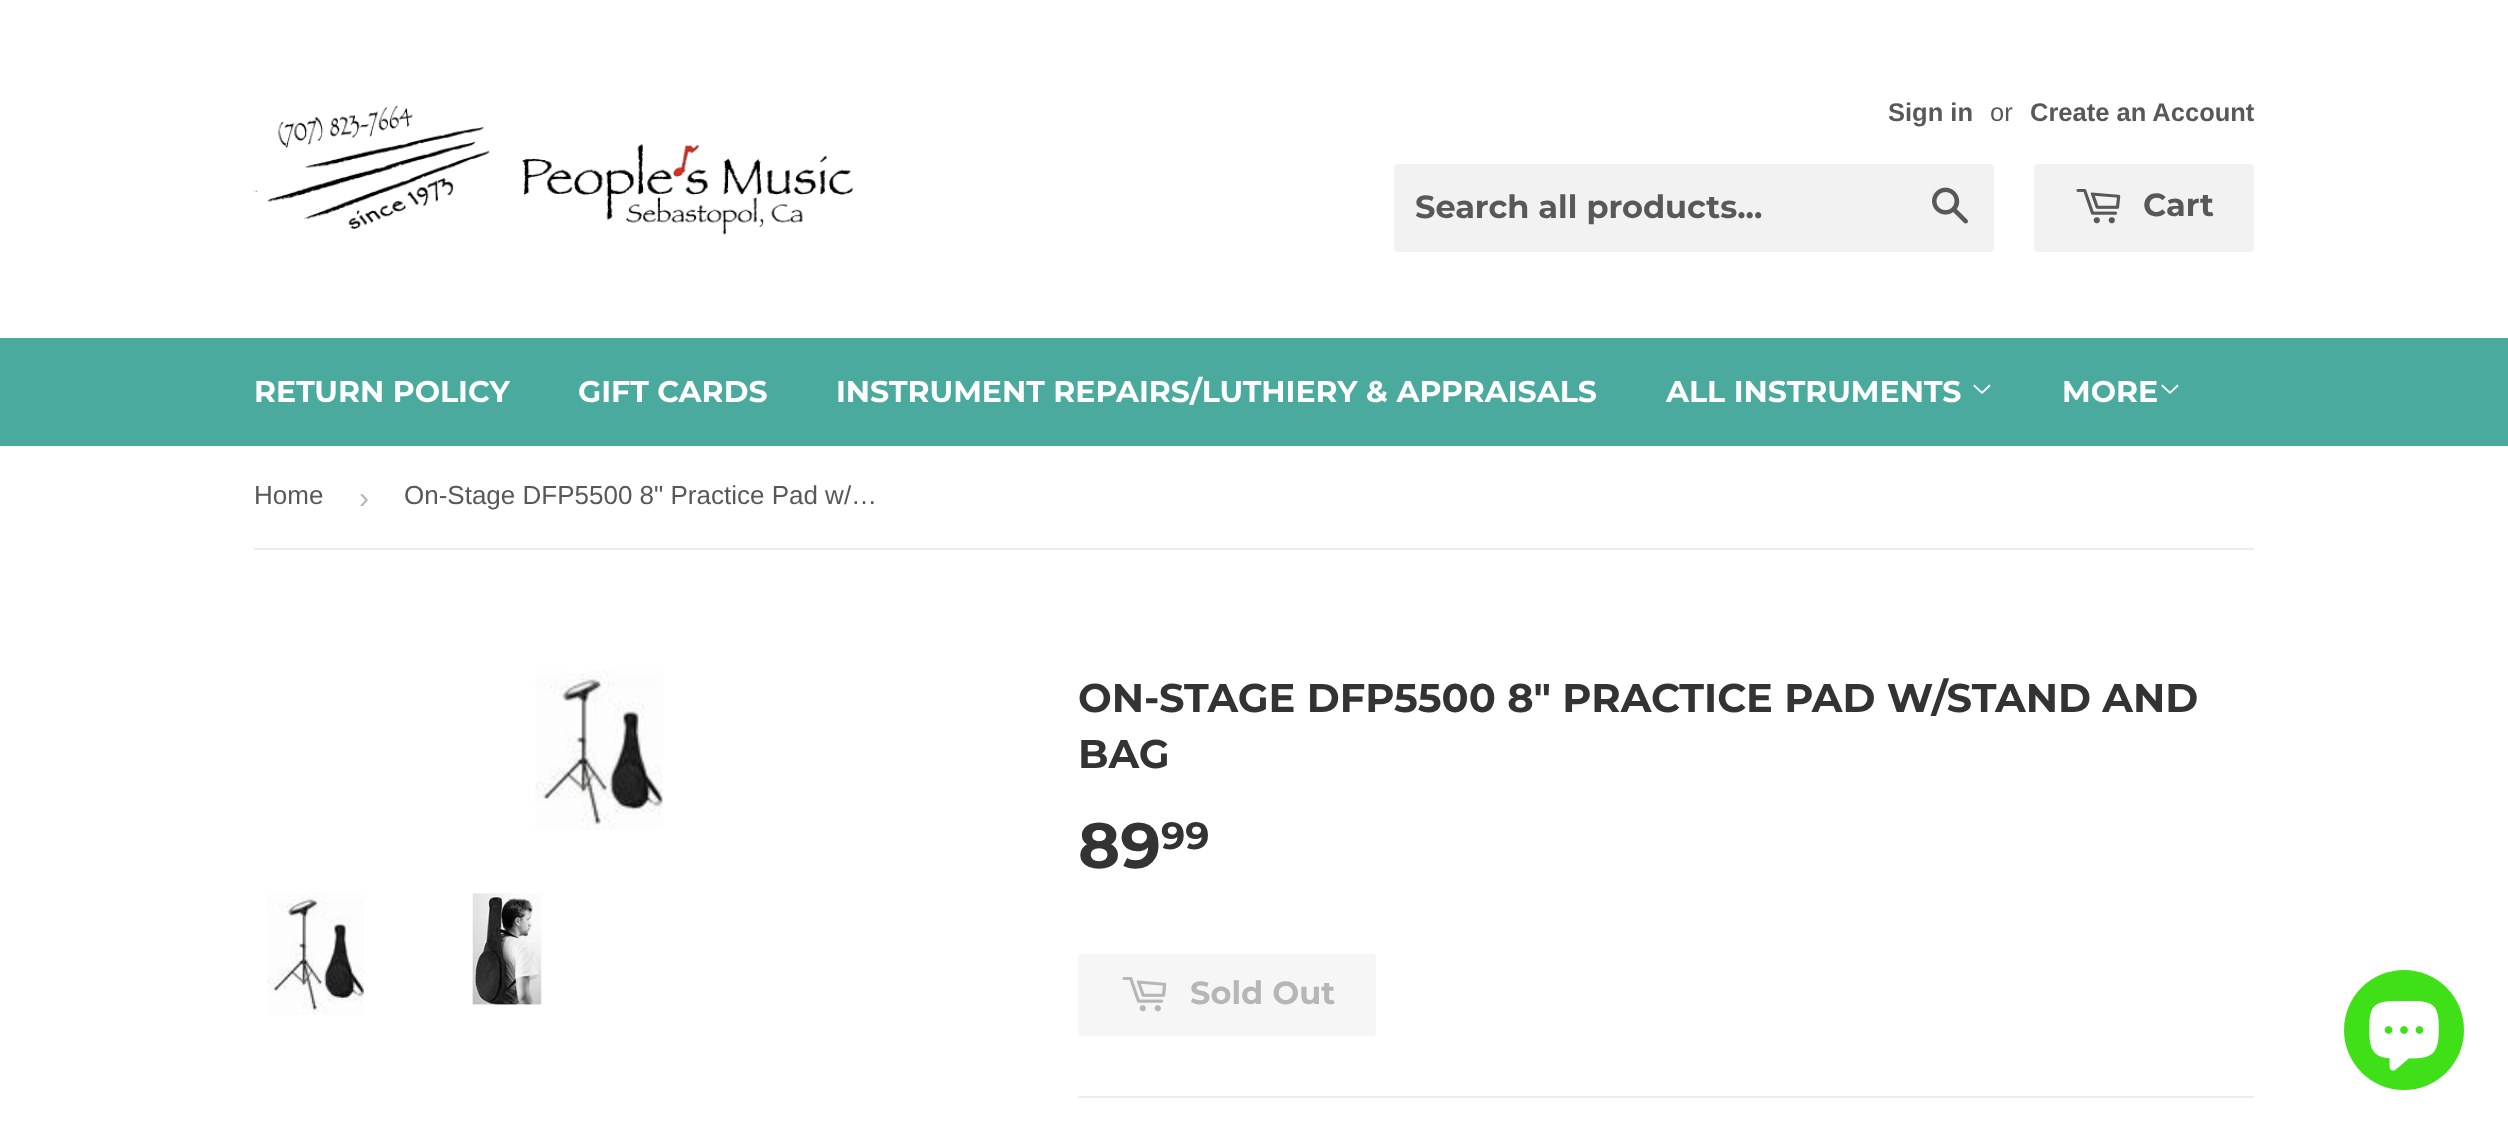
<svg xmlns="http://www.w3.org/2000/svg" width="2508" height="1131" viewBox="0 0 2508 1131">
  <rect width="100%" height="100%" fill="#ffffff"/>
  <image x="254" y="105" width="600" height="130" href="img1.png"/>
  <text x="1888" y="121" font-family="Liberation Sans" font-size="25.5" font-weight="bold" fill="#585858">Sign in</text>
  <text x="1990" y="121" font-family="Liberation Sans" font-size="25.5" fill="#585858">or</text>
  <text x="2030" y="121" font-family="Liberation Sans" font-size="25.5" font-weight="bold" fill="#585858">Create an Account</text>
  <rect x="1394" y="164" width="600" height="88" rx="4" fill="#f2f2f2"/>
  <text x="1415" y="218" font-family="Montserrat" font-size="32" font-weight="100" fill="#585858">Search all products...</text>
  <image x="1932" y="187" width="36" height="37" href="img2.png"/>
  <rect x="2034" y="164" width="220" height="88" rx="4" fill="#f2f2f2"/>
  <image x="2076" y="189" width="45" height="35" href="img3.png"/>
  <text x="2143" y="216" font-family="Montserrat" font-size="32" font-weight="100" fill="#585858">Cart</text>
  <rect x="0" y="338" width="2508" height="108" fill="#49aa9d"/>
  <text x="254" y="402" font-family="Montserrat" font-size="30" font-weight="100" fill="#ffffff">RETURN POLICY</text>
  <text x="578" y="402" font-family="Montserrat" font-size="30" font-weight="100" fill="#ffffff">GIFT CARDS</text>
  <text x="836" y="402" font-family="Montserrat" font-size="30" font-weight="100" fill="#ffffff">INSTRUMENT REPAIRS/LUTHIERY &amp; APPRAISALS</text>
  <text x="1666" y="402" font-family="Montserrat" font-size="30" font-weight="100" fill="#ffffff">ALL INSTRUMENTS</text>
  <image x="1973" y="384" width="18" height="10" href="img4.png"/>
  <text x="2062" y="402" font-family="Montserrat" font-size="30" font-weight="100" fill="#ffffff">MORE</text>
  <image x="2161" y="384" width="18" height="10" href="img4.png"/>
  <rect x="254" y="548" width="2000" height="2" fill="#ececec"/>
  <text x="254" y="504" font-family="Liberation Sans" font-size="26" fill="#585858">Home</text>
  <text x="359" y="508" font-family="Liberation Sans" font-size="30" fill="#b6b6b6">›</text>
  <text x="404" y="504" font-family="Liberation Sans" font-size="26" fill="#585858">On-Stage DFP5500 8" Practice Pad w/…</text>
  <image x="535" y="670" width="128" height="160" href="img5.png"/>
  <image x="267" y="892" width="97" height="123" href="img6.png"/>
  <image x="472" y="892" width="71" height="114" href="img7.png"/>
  <text x="1078" y="712" font-family="Montserrat" font-size="40" font-weight="100" fill="#333333">ON-STAGE DFP5500 8" PRACTICE PAD W/STAND AND</text>
  <text x="1078" y="768" font-family="Montserrat" font-size="40" font-weight="100" fill="#333333">BAG</text>
  <text x="1078" y="868" font-family="Montserrat" font-size="64" font-weight="100" fill="#333333">89</text>
  <text x="1161" y="849" font-family="Montserrat" font-size="38" font-weight="100" fill="#333333">99</text>
  <rect x="1078" y="954" width="298" height="82" rx="4" fill="#f6f6f6"/>
  <image x="1122" y="977" width="45" height="35" href="img8.png"/>
  <text x="1190" y="1004" font-family="Montserrat" font-size="32" font-weight="100" fill="#b6b6b6">Sold Out</text>
  <rect x="1078" y="1096" width="1176" height="2" fill="#ececec"/>
  <circle cx="2404" cy="1030" r="60" fill="#3fe017"/>
  <image x="2369" y="1001" width="70" height="70" href="img9.png"/>
</svg>
